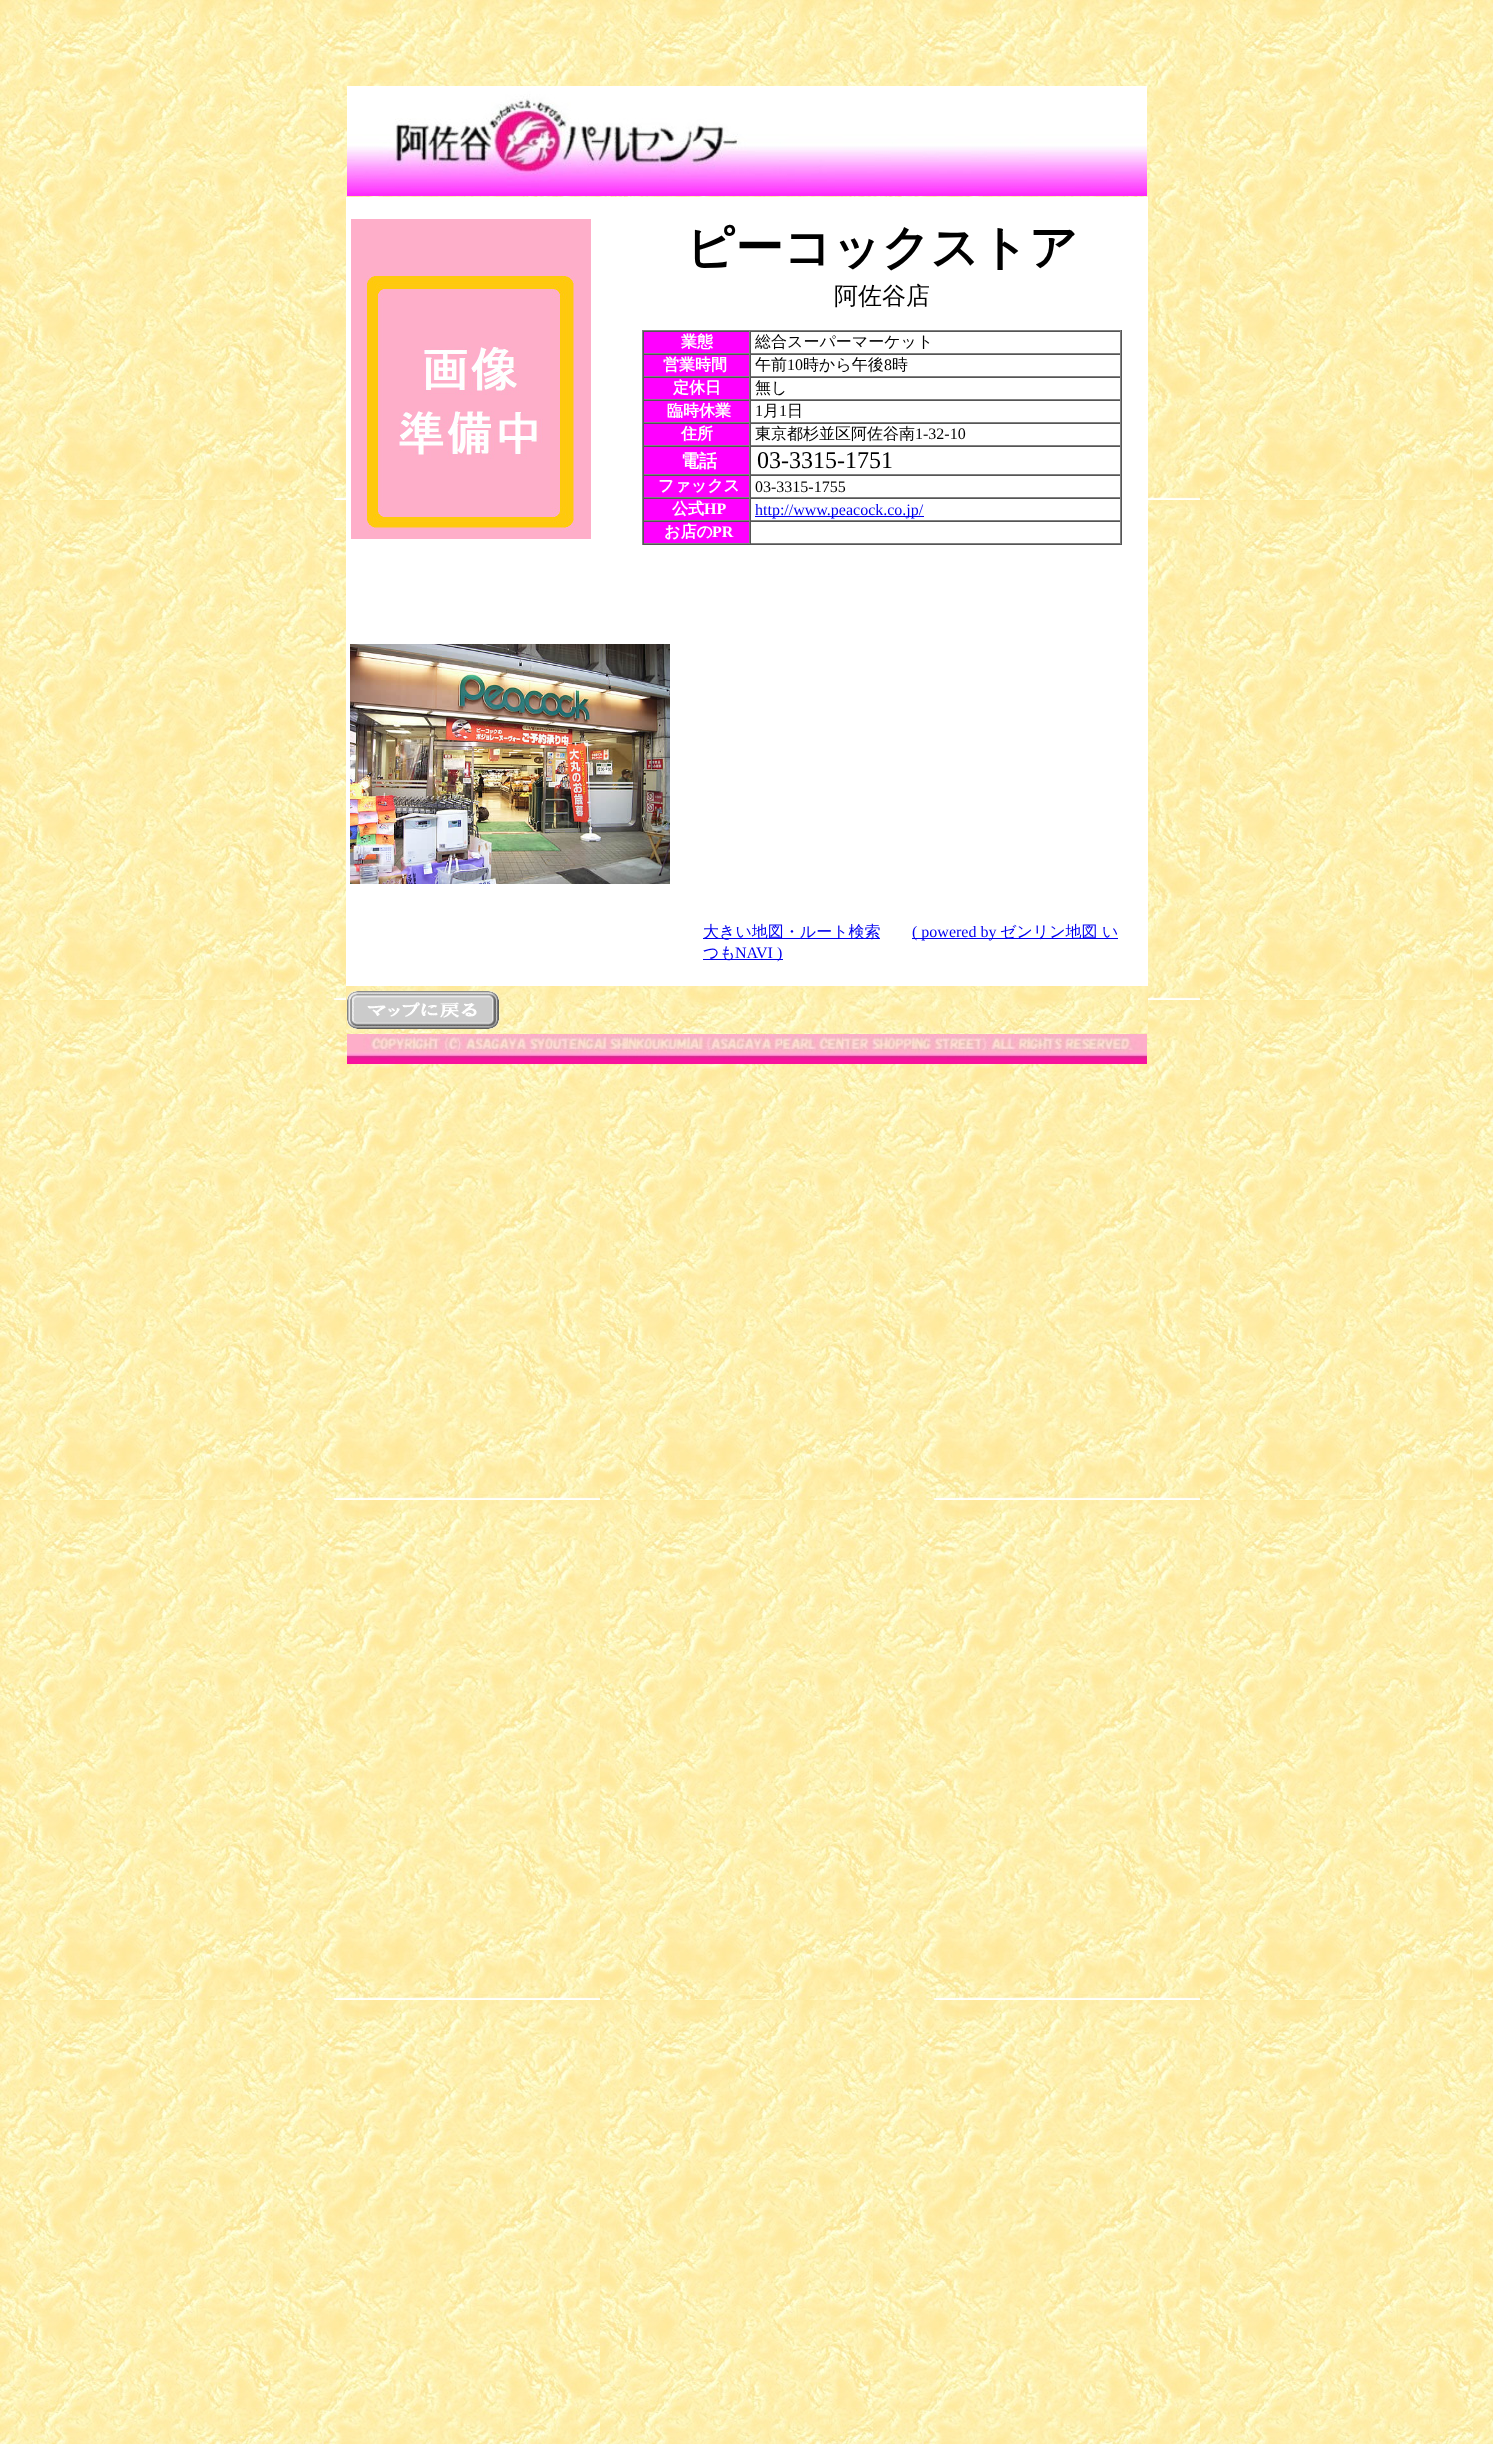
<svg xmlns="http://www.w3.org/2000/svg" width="1493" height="2444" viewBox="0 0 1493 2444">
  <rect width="100%" height="100%" fill="#ffffff"/>
  <image x="0" y="0" width="1493" height="2444" href="img1.png"/>
  <image x="347" y="86" width="800" height="110" href="img2.png"/>
  <rect x="346" y="197" width="802" height="789" fill="#ffffff"/>
  <image x="351" y="219" width="240" height="320" href="img3.png"/>
  <text x="686" y="264" font-family="WenQuanYi Zen Hei" font-size="48" font-weight="bold" fill="#000000">ピーコックストア</text>
  <text x="834" y="304" font-family="WenQuanYi Zen Hei" font-size="24" font-weight="500" fill="#000000">阿佐谷店</text>
  <rect x="642" y="330" width="480" height="1" fill="#808080"/>
  <rect x="1121" y="330" width="1" height="215" fill="#555555"/>
  <rect x="642" y="544" width="480" height="1" fill="#555555"/>
  <rect x="642" y="330" width="1" height="215" fill="#808080"/>
  <rect x="644" y="332" width="105" height="21" fill="#ff00ff"/>
  <rect x="643" y="331" width="478" height="1" fill="#555555"/>
  <rect x="749" y="331" width="1" height="23" fill="#808080"/>
  <rect x="643" y="353" width="107" height="1" fill="#808080"/>
  <rect x="643" y="331" width="1" height="23" fill="#555555"/>
  <text x="681" y="347" font-family="WenQuanYi Zen Hei" font-size="16" font-weight="bold" fill="#ffffff">業態</text>
  <rect x="1120" y="331" width="1" height="23" fill="#808080"/>
  <rect x="750" y="353" width="371" height="1" fill="#808080"/>
  <rect x="750" y="331" width="1" height="23" fill="#555555"/>
  <text x="755" y="347" font-family="WenQuanYi Zen Hei" font-size="16" font-weight="500" fill="#000000">総合スーパーマーケット</text>
  <rect x="644" y="355" width="105" height="21" fill="#ff00ff"/>
  <rect x="643" y="354" width="478" height="1" fill="#555555"/>
  <rect x="749" y="354" width="1" height="23" fill="#808080"/>
  <rect x="643" y="376" width="107" height="1" fill="#808080"/>
  <rect x="643" y="354" width="1" height="23" fill="#555555"/>
  <text x="663" y="370" font-family="WenQuanYi Zen Hei" font-size="16" font-weight="bold" fill="#ffffff">営業時間</text>
  <rect x="1120" y="354" width="1" height="23" fill="#808080"/>
  <rect x="750" y="376" width="371" height="1" fill="#808080"/>
  <rect x="750" y="354" width="1" height="23" fill="#555555"/>
  <text x="755" y="370" font-family="WenQuanYi Zen Hei" font-size="16" font-weight="500" fill="#000000">午前</text>
  <text x="787" y="370" font-family="Liberation Serif" font-size="16" fill="#000000">10</text>
  <text x="803" y="370" font-family="WenQuanYi Zen Hei" font-size="16" font-weight="500" fill="#000000">時から午後</text>
  <text x="884" y="370" font-family="Liberation Serif" font-size="16" fill="#000000">8</text>
  <text x="892" y="370" font-family="WenQuanYi Zen Hei" font-size="16" font-weight="500" fill="#000000">時</text>
  <rect x="644" y="378" width="105" height="21" fill="#ff00ff"/>
  <rect x="643" y="377" width="478" height="1" fill="#555555"/>
  <rect x="749" y="377" width="1" height="23" fill="#808080"/>
  <rect x="643" y="399" width="107" height="1" fill="#808080"/>
  <rect x="643" y="377" width="1" height="23" fill="#555555"/>
  <text x="673" y="393" font-family="WenQuanYi Zen Hei" font-size="16" font-weight="bold" fill="#ffffff">定休日</text>
  <rect x="1120" y="377" width="1" height="23" fill="#808080"/>
  <rect x="750" y="399" width="371" height="1" fill="#808080"/>
  <rect x="750" y="377" width="1" height="23" fill="#555555"/>
  <text x="755" y="393" font-family="WenQuanYi Zen Hei" font-size="16" font-weight="500" fill="#000000">無し</text>
  <rect x="644" y="401" width="105" height="21" fill="#ff00ff"/>
  <rect x="643" y="400" width="478" height="1" fill="#555555"/>
  <rect x="749" y="400" width="1" height="23" fill="#808080"/>
  <rect x="643" y="422" width="107" height="1" fill="#808080"/>
  <rect x="643" y="400" width="1" height="23" fill="#555555"/>
  <text x="667" y="416" font-family="WenQuanYi Zen Hei" font-size="16" font-weight="bold" fill="#ffffff">臨時休業</text>
  <rect x="1120" y="400" width="1" height="23" fill="#808080"/>
  <rect x="750" y="422" width="371" height="1" fill="#808080"/>
  <rect x="750" y="400" width="1" height="23" fill="#555555"/>
  <text x="755" y="416" font-family="Liberation Serif" font-size="16" fill="#000000">1</text>
  <text x="763" y="416" font-family="WenQuanYi Zen Hei" font-size="16" font-weight="500" fill="#000000">月</text>
  <text x="779" y="416" font-family="Liberation Serif" font-size="16" fill="#000000">1</text>
  <text x="787" y="416" font-family="WenQuanYi Zen Hei" font-size="16" font-weight="500" fill="#000000">日</text>
  <rect x="644" y="424" width="105" height="21" fill="#ff00ff"/>
  <rect x="643" y="423" width="478" height="1" fill="#555555"/>
  <rect x="749" y="423" width="1" height="23" fill="#808080"/>
  <rect x="643" y="445" width="107" height="1" fill="#808080"/>
  <rect x="643" y="423" width="1" height="23" fill="#555555"/>
  <text x="681" y="439" font-family="WenQuanYi Zen Hei" font-size="16" font-weight="bold" fill="#ffffff">住所</text>
  <rect x="1120" y="423" width="1" height="23" fill="#808080"/>
  <rect x="750" y="445" width="371" height="1" fill="#808080"/>
  <rect x="750" y="423" width="1" height="23" fill="#555555"/>
  <text x="755" y="439" font-family="WenQuanYi Zen Hei" font-size="16" font-weight="500" fill="#000000">東京都杉並区阿佐谷南</text>
  <text x="915" y="439" font-family="Liberation Serif" font-size="16" fill="#000000">1-32-10</text>
  <rect x="644" y="447" width="105" height="27" fill="#ff00ff"/>
  <rect x="643" y="446" width="478" height="1" fill="#555555"/>
  <rect x="749" y="446" width="1" height="29" fill="#808080"/>
  <rect x="643" y="474" width="107" height="1" fill="#808080"/>
  <rect x="643" y="446" width="1" height="29" fill="#555555"/>
  <text x="681" y="467" font-family="WenQuanYi Zen Hei" font-size="18" font-weight="bold" fill="#ffffff">電話</text>
  <rect x="1120" y="446" width="1" height="29" fill="#808080"/>
  <rect x="750" y="474" width="371" height="1" fill="#808080"/>
  <rect x="750" y="446" width="1" height="29" fill="#555555"/>
  <text x="757" y="468" font-family="Liberation Serif" font-size="24" fill="#000000">03-3315-1751</text>
  <rect x="644" y="476" width="105" height="21" fill="#ff00ff"/>
  <rect x="643" y="475" width="478" height="1" fill="#555555"/>
  <rect x="749" y="475" width="1" height="23" fill="#808080"/>
  <rect x="643" y="497" width="107" height="1" fill="#808080"/>
  <rect x="643" y="475" width="1" height="23" fill="#555555"/>
  <text x="658" y="491" font-family="WenQuanYi Zen Hei" font-size="16" font-weight="bold" fill="#ffffff">ファックス</text>
  <rect x="1120" y="475" width="1" height="23" fill="#808080"/>
  <rect x="750" y="497" width="371" height="1" fill="#808080"/>
  <rect x="750" y="475" width="1" height="23" fill="#555555"/>
  <text x="755" y="492" font-family="Liberation Serif" font-size="16" fill="#000000">03-3315-1755</text>
  <rect x="644" y="499" width="105" height="21" fill="#ff00ff"/>
  <rect x="643" y="498" width="478" height="1" fill="#555555"/>
  <rect x="749" y="498" width="1" height="23" fill="#808080"/>
  <rect x="643" y="520" width="107" height="1" fill="#808080"/>
  <rect x="643" y="498" width="1" height="23" fill="#555555"/>
  <text x="672" y="514" font-family="WenQuanYi Zen Hei" font-size="16" font-weight="bold" fill="#ffffff">公式</text>
  <text x="704" y="514" font-family="Liberation Serif" font-size="16" font-weight="bold" fill="#ffffff">HP</text>
  <rect x="1120" y="498" width="1" height="23" fill="#808080"/>
  <rect x="750" y="520" width="371" height="1" fill="#808080"/>
  <rect x="750" y="498" width="1" height="23" fill="#555555"/>
  <rect x="755" y="516" width="169" height="1" fill="#0000ee"/>
  <text x="755" y="515" font-family="Liberation Serif" font-size="16" fill="#0000ee">http://www.peacock.co.jp/</text>
  <rect x="644" y="522" width="105" height="21" fill="#ff00ff"/>
  <rect x="643" y="521" width="478" height="1" fill="#555555"/>
  <rect x="749" y="521" width="1" height="23" fill="#808080"/>
  <rect x="643" y="543" width="107" height="1" fill="#808080"/>
  <rect x="643" y="521" width="1" height="23" fill="#555555"/>
  <text x="664" y="537" font-family="WenQuanYi Zen Hei" font-size="16" font-weight="bold" fill="#ffffff">お店の</text>
  <text x="712" y="537" font-family="Liberation Serif" font-size="16" font-weight="bold" fill="#ffffff">PR</text>
  <rect x="1120" y="521" width="1" height="23" fill="#808080"/>
  <rect x="750" y="543" width="371" height="1" fill="#808080"/>
  <rect x="750" y="521" width="1" height="23" fill="#555555"/>
  <image x="350" y="644" width="320" height="240" href="img4.png"/>
  <rect x="703" y="938" width="177" height="1" fill="#0000ee"/>
  <text x="703" y="937" font-family="WenQuanYi Zen Hei" font-size="16" font-weight="500" fill="#0000ee">大きい地図・ルート検索</text>
  <rect x="912" y="938" width="206" height="1" fill="#0000ee"/>
  <text x="912" y="937" font-family="Liberation Serif" font-size="16" fill="#0000ee">( powered by</text>
  <text x="1000" y="937" font-family="WenQuanYi Zen Hei" font-size="16" font-weight="500" fill="#0000ee">ゼンリン地図</text>
  <text x="1102" y="937" font-family="WenQuanYi Zen Hei" font-size="16" font-weight="500" fill="#0000ee">い</text>
  <rect x="703" y="959" width="80" height="1" fill="#0000ee"/>
  <text x="703" y="958" font-family="WenQuanYi Zen Hei" font-size="16" font-weight="500" fill="#0000ee">つも</text>
  <text x="735" y="958" font-family="Liberation Serif" font-size="16" fill="#0000ee">NAVI )</text>
  <image x="346" y="986" width="802" height="47" href="img5.png"/>
  <image x="347" y="991" width="152" height="38" href="img6.png"/>
  <image x="347" y="1034" width="800" height="30" href="img7.png"/>
</svg>
